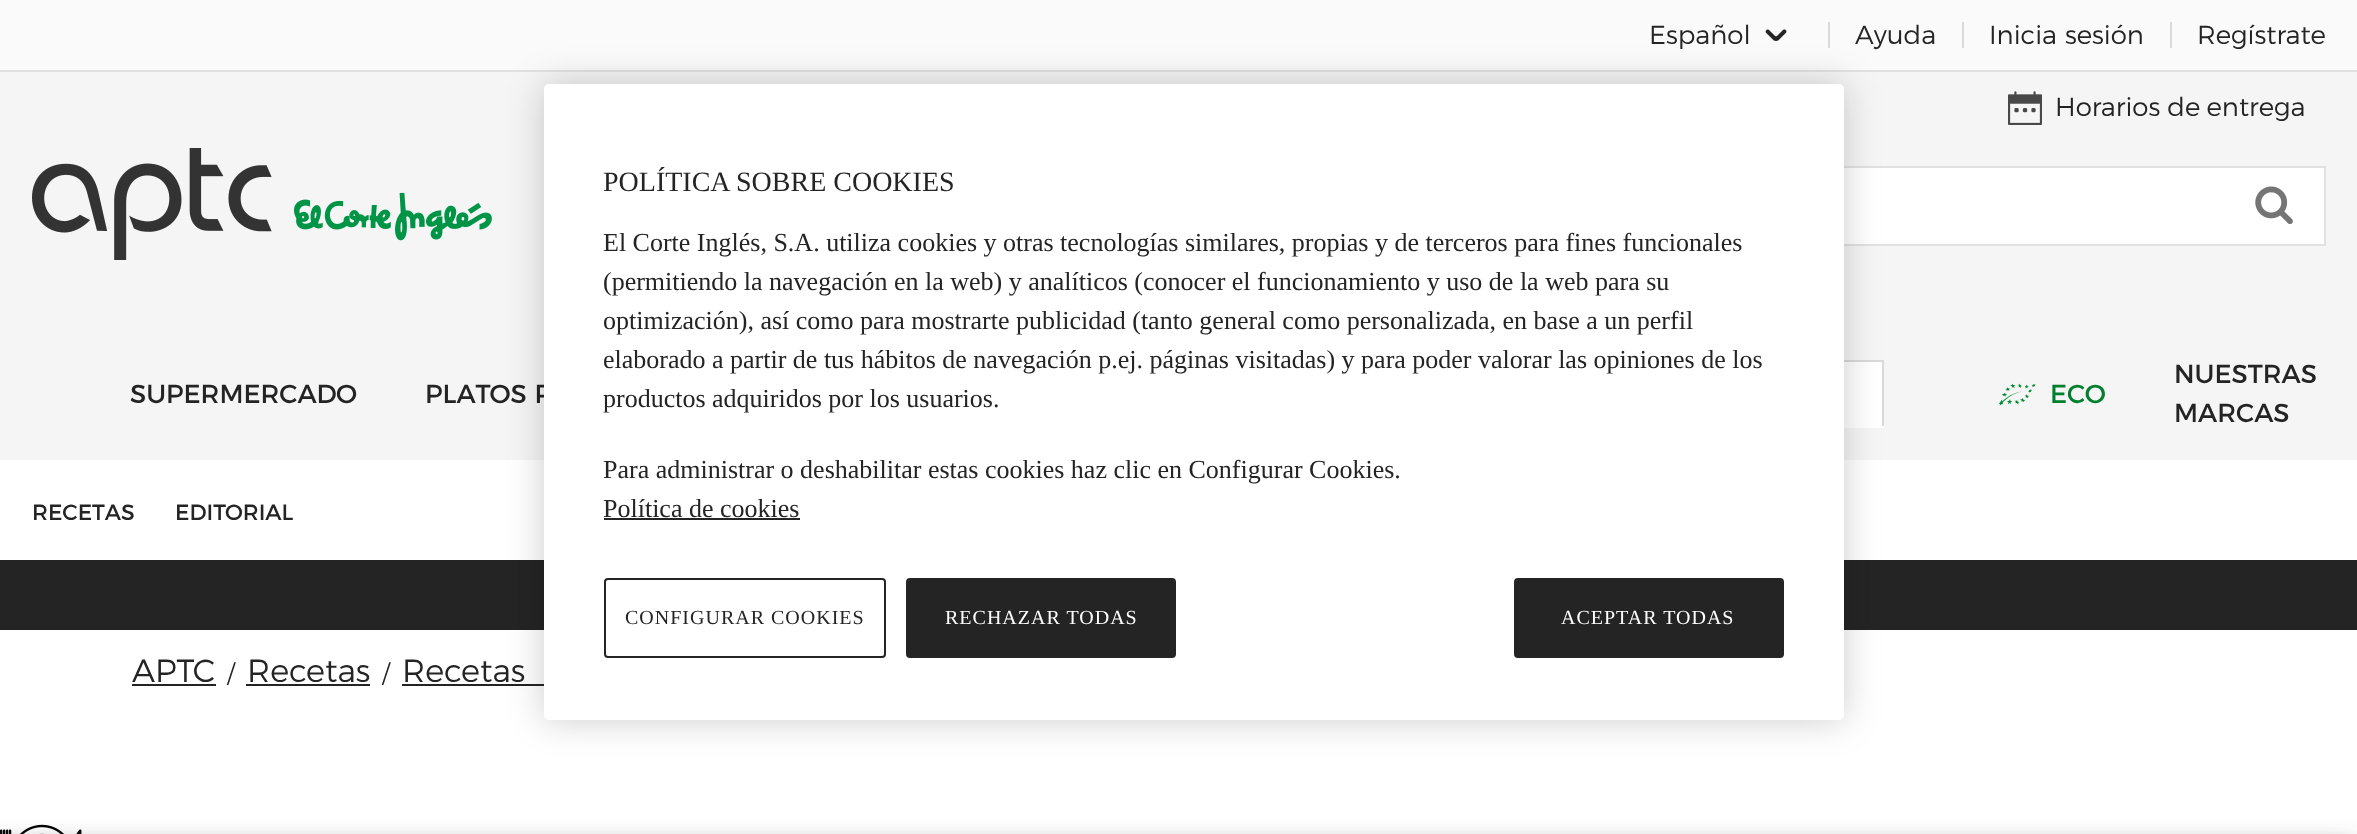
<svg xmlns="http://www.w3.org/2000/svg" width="2357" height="834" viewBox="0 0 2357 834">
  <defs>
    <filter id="blur1" x="-50%" y="-200%" width="200%" height="500%"><feGaussianBlur stdDeviation="18"/></filter>
    <filter id="blur2" x="-50%" y="-200%" width="200%" height="500%"><feGaussianBlur stdDeviation="12"/></filter>
  </defs>
  <rect width="100%" height="100%" fill="#ffffff"/>
  <rect x="0" y="0" width="2357" height="70" fill="#fafafa"/>
  <rect x="0" y="70" width="2357" height="2" fill="#e1e1e1"/>
  <text x="1649" y="44" font-family="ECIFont" font-size="26" font-weight="300" fill="#242424">Español</text>
  <image x="1765" y="29" width="22" height="12" href="img1.png"/>
  <rect x="1828" y="22" width="2" height="26" fill="#d9d9d9"/>
  <text x="1855" y="44" font-family="ECIFont" font-size="26" font-weight="300" fill="#242424">Ayuda</text>
  <rect x="1962" y="22" width="2" height="26" fill="#d9d9d9"/>
  <text x="1989" y="44" font-family="ECIFont" font-size="26" font-weight="300" fill="#242424">Inicia sesión</text>
  <rect x="2170" y="22" width="2" height="26" fill="#d9d9d9"/>
  <text x="2197" y="44" font-family="ECIFont" font-size="26" font-weight="300" fill="#242424">Regístrate</text>
  <rect x="0" y="72" width="2357" height="388" fill="#f5f5f5"/>
  <image x="2008" y="91" width="34" height="34" href="img2.png"/>
  <text x="2055" y="116" font-family="ECIFont" font-size="26" font-weight="300" fill="#242424">Horarios de entrega</text>
  <image x="32" y="148" width="460" height="112" href="img3.png"/>
  <rect x="1844" y="168" width="480" height="76" fill="#ffffff"/>
  <rect x="1273" y="167" width="1052" height="78" fill="none" stroke="#e1e1e1" stroke-width="2"/>
  <image x="2255" y="186" width="38" height="38" href="img4.png"/>
  <text x="130" y="403" font-family="ECIFont" font-size="26" fill="#242424">SUPERMERCADO</text>
  <text x="425" y="403" font-family="ECIFont" font-size="26" fill="#242424">PLATOS P</text>
  <rect x="1844" y="362" width="38" height="64" fill="#ffffff"/>
  <rect x="1844" y="360" width="40" height="2" fill="#d9d9d9"/>
  <rect x="1882" y="360" width="2" height="68" fill="#d9d9d9"/>
  <rect x="1844" y="426" width="40" height="2" fill="#ffffff"/>
  <image x="1998" y="383" width="38" height="23" href="img5.png"/>
  <text x="2050" y="403" font-family="ECIFont" font-size="26" fill="#00802d">ECO</text>
  <text x="2174" y="383" font-family="ECIFont" font-size="26" fill="#242424">NUESTRAS</text>
  <text x="2174" y="422" font-family="ECIFont" font-size="26" fill="#242424">MARCAS</text>
  <text x="32" y="520" font-family="ECIFont" font-size="22" fill="#242424">RECETAS</text>
  <text x="175" y="520" font-family="ECIFont" font-size="22" fill="#242424">EDITORIAL</text>
  <rect x="0" y="560" width="2357" height="70" fill="#242424"/>
  <rect x="402" y="684" width="142" height="2" fill="#242424"/>
  <rect x="544" y="84" width="1300" height="636" rx="5" fill="#000000" fill-opacity="0.2" filter="url(#blur1)"/>
  <rect x="544" y="84" width="1300" height="636" rx="5" fill="#ffffff"/>
  <text x="603" y="191" font-family="Liberation Serif" font-size="28" fill="#242424">POLÍTICA SOBRE COOKIES</text>
  <text x="603" y="251" font-family="Liberation Serif" font-size="26" fill="#242424">El Corte Inglés, S.A. utiliza cookies y otras tecnologías similares, propias y de terceros para fines funcionales</text>
  <text x="603" y="290" font-family="Liberation Serif" font-size="26" fill="#242424">(permitiendo la navegación en la web) y analíticos (conocer el funcionamiento y uso de la web para su</text>
  <text x="603" y="329" font-family="Liberation Serif" font-size="26" fill="#242424">optimización), así como para mostrarte publicidad (tanto general como personalizada, en base a un perfil</text>
  <text x="603" y="368" font-family="Liberation Serif" font-size="26" fill="#242424">elaborado a partir de tus hábitos de navegación p.ej. páginas visitadas) y para poder valorar las opiniones de los</text>
  <text x="603" y="407" font-family="Liberation Serif" font-size="26" fill="#242424">productos adquiridos por los usuarios.</text>
  <text x="603" y="478" font-family="Liberation Serif" font-size="26" fill="#242424">Para administrar o deshabilitar estas cookies haz clic en Configurar Cookies.</text>
  <text x="603" y="517" font-family="Liberation Serif" font-size="26" fill="#242424">Política de cookies</text>
  <rect x="604" y="518" width="196" height="2" fill="#242424"/>
  <rect x="605" y="579" width="280" height="78" rx="3" fill="none" stroke="#242424" stroke-width="2"/>
  <text x="625" y="624" font-family="Liberation Serif" font-size="20" letter-spacing="1" fill="#242424">CONFIGURAR COOKIES</text>
  <rect x="907" y="579" width="268" height="78" rx="3" fill="#242424" stroke="#242424" stroke-width="2"/>
  <text x="945" y="624" font-family="Liberation Serif" font-size="20" letter-spacing="1" fill="#ffffff">RECHAZAR TODAS</text>
  <rect x="1515" y="579" width="268" height="78" rx="3" fill="#242424" stroke="#242424" stroke-width="2"/>
  <text x="1561" y="624" font-family="Liberation Serif" font-size="20" letter-spacing="1" fill="#ffffff">ACEPTAR TODAS</text>
  <text x="132" y="682" font-family="ECIFont" font-size="32" font-weight="300" fill="#242424">APTC</text>
  <rect x="132" y="684" width="84" height="2" fill="#242424"/>
  <text x="227" y="682" font-family="ECIFont" font-size="24" font-weight="300" fill="#242424">/</text>
  <text x="247" y="682" font-family="ECIFont" font-size="32" font-weight="300" fill="#242424">Recetas</text>
  <rect x="246" y="684" width="124" height="2" fill="#242424"/>
  <text x="382" y="682" font-family="ECIFont" font-size="24" font-weight="300" fill="#242424">/</text>
  <text x="402" y="682" font-family="ECIFont" font-size="32" font-weight="300" fill="#242424">Recetas</text>
  <image x="0" y="824" width="82" height="10" href="img6.png"/>
  <rect x="-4" y="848" width="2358" height="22" fill="#5c5c5c" filter="url(#blur2)"/>
</svg>
